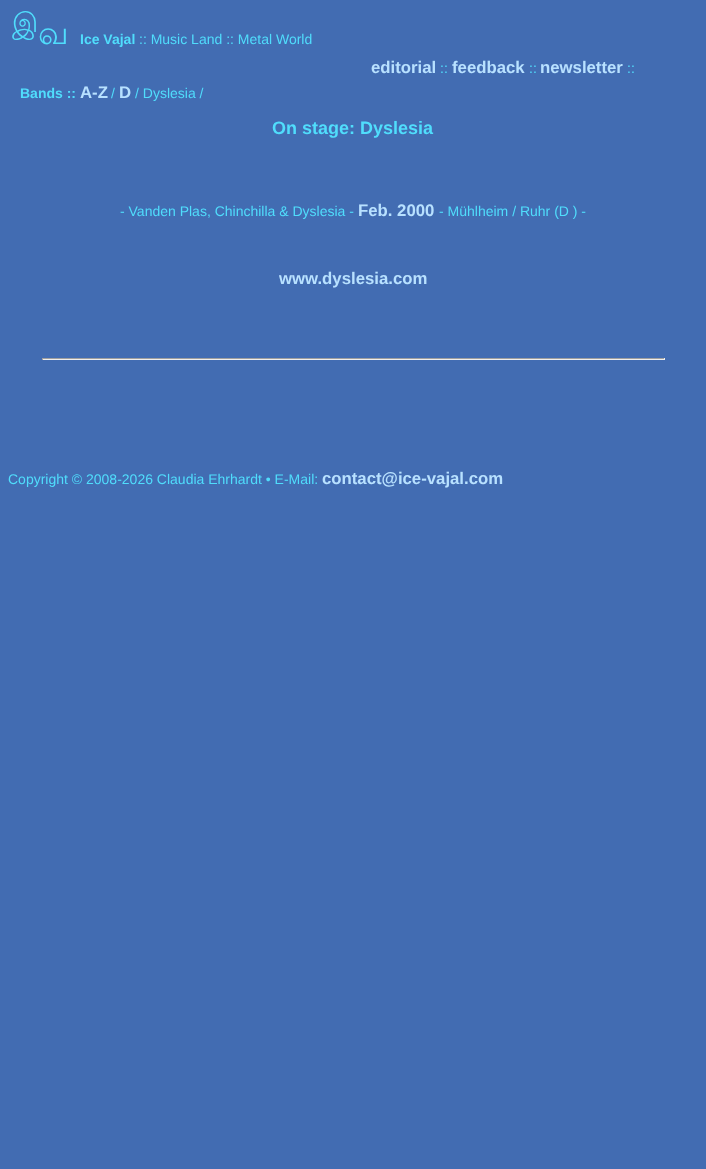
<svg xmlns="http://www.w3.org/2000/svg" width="706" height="1169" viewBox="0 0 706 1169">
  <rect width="100%" height="100%" fill="#426cb2"/>
  <text x="12" y="32" font-family="Lohit Tamil" font-size="27" fill="#50ddfc">இ</text>
  <text x="38" y="44" font-family="Lohit Tamil" font-size="32" fill="#50ddfc">வ</text>
  <text x="80" y="44" font-family="Liberation Sans" font-size="14" font-weight="bold" fill="#50ddfc">Ice Vajal</text>
  <text x="139" y="44" font-family="Liberation Sans" font-size="14" fill="#50ddfc">:: Music Land :: Metal World</text>
  <text x="371" y="73" font-family="Liberation Sans" font-size="16.75" font-weight="bold" fill="#b8e1ff">editorial</text>
  <text x="440" y="73" font-family="Liberation Sans" font-size="14" fill="#50ddfc">::</text>
  <text x="452" y="73" font-family="Liberation Sans" font-size="16.75" font-weight="bold" fill="#b8e1ff">feedback</text>
  <text x="529" y="73" font-family="Liberation Sans" font-size="14" fill="#50ddfc">::</text>
  <text x="540" y="73" font-family="Liberation Sans" font-size="16.75" font-weight="bold" fill="#b8e1ff">newsletter</text>
  <text x="627" y="73" font-family="Liberation Sans" font-size="14" fill="#50ddfc">::</text>
  <text x="20" y="98" font-family="Liberation Sans" font-size="14" font-weight="bold" fill="#50ddfc">Bands ::</text>
  <text x="80" y="98" font-family="Liberation Sans" font-size="16.75" font-weight="bold" fill="#b8e1ff">A-Z</text>
  <text x="111" y="98" font-family="Liberation Sans" font-size="14" fill="#50ddfc">/</text>
  <text x="119" y="98" font-family="Liberation Sans" font-size="16.75" font-weight="bold" fill="#b8e1ff">D</text>
  <text x="135" y="98" font-family="Liberation Sans" font-size="14" fill="#50ddfc">/ Dyslesia /</text>
  <text x="272" y="134" font-family="Liberation Sans" font-size="18" font-weight="bold" fill="#50ddfc">On stage: Dyslesia</text>
  <text x="120" y="216" font-family="Liberation Sans" font-size="14" fill="#50ddfc">- Vanden Plas, Chinchilla &amp; Dyslesia -</text>
  <text x="358" y="216" font-family="Liberation Sans" font-size="16.75" font-weight="bold" fill="#b8e1ff">Feb. 2000</text>
  <text x="439" y="216" font-family="Liberation Sans" font-size="14" fill="#50ddfc">- Mühlheim / Ruhr (D ) -</text>
  <text x="279" y="284" font-family="Liberation Sans" font-size="16.75" font-weight="bold" fill="#b8e1ff">www.dyslesia.com</text>
  <rect x="42" y="358" width="623" height="1" fill="#9f9f9f"/>
  <rect x="664" y="358" width="1" height="2" fill="#eeeeee"/>
  <rect x="42" y="359" width="623" height="1" fill="#eeeeee"/>
  <rect x="42" y="358" width="1" height="2" fill="#9f9f9f"/>
  <text x="8" y="484" font-family="Liberation Sans" font-size="14" fill="#50ddfc">Copyright © 2008-2026 Claudia Ehrhardt • E-Mail:</text>
  <text x="322" y="484" font-family="Liberation Sans" font-size="16.75" font-weight="bold" fill="#b8e1ff">contact@ice-vajal.com</text>
</svg>
